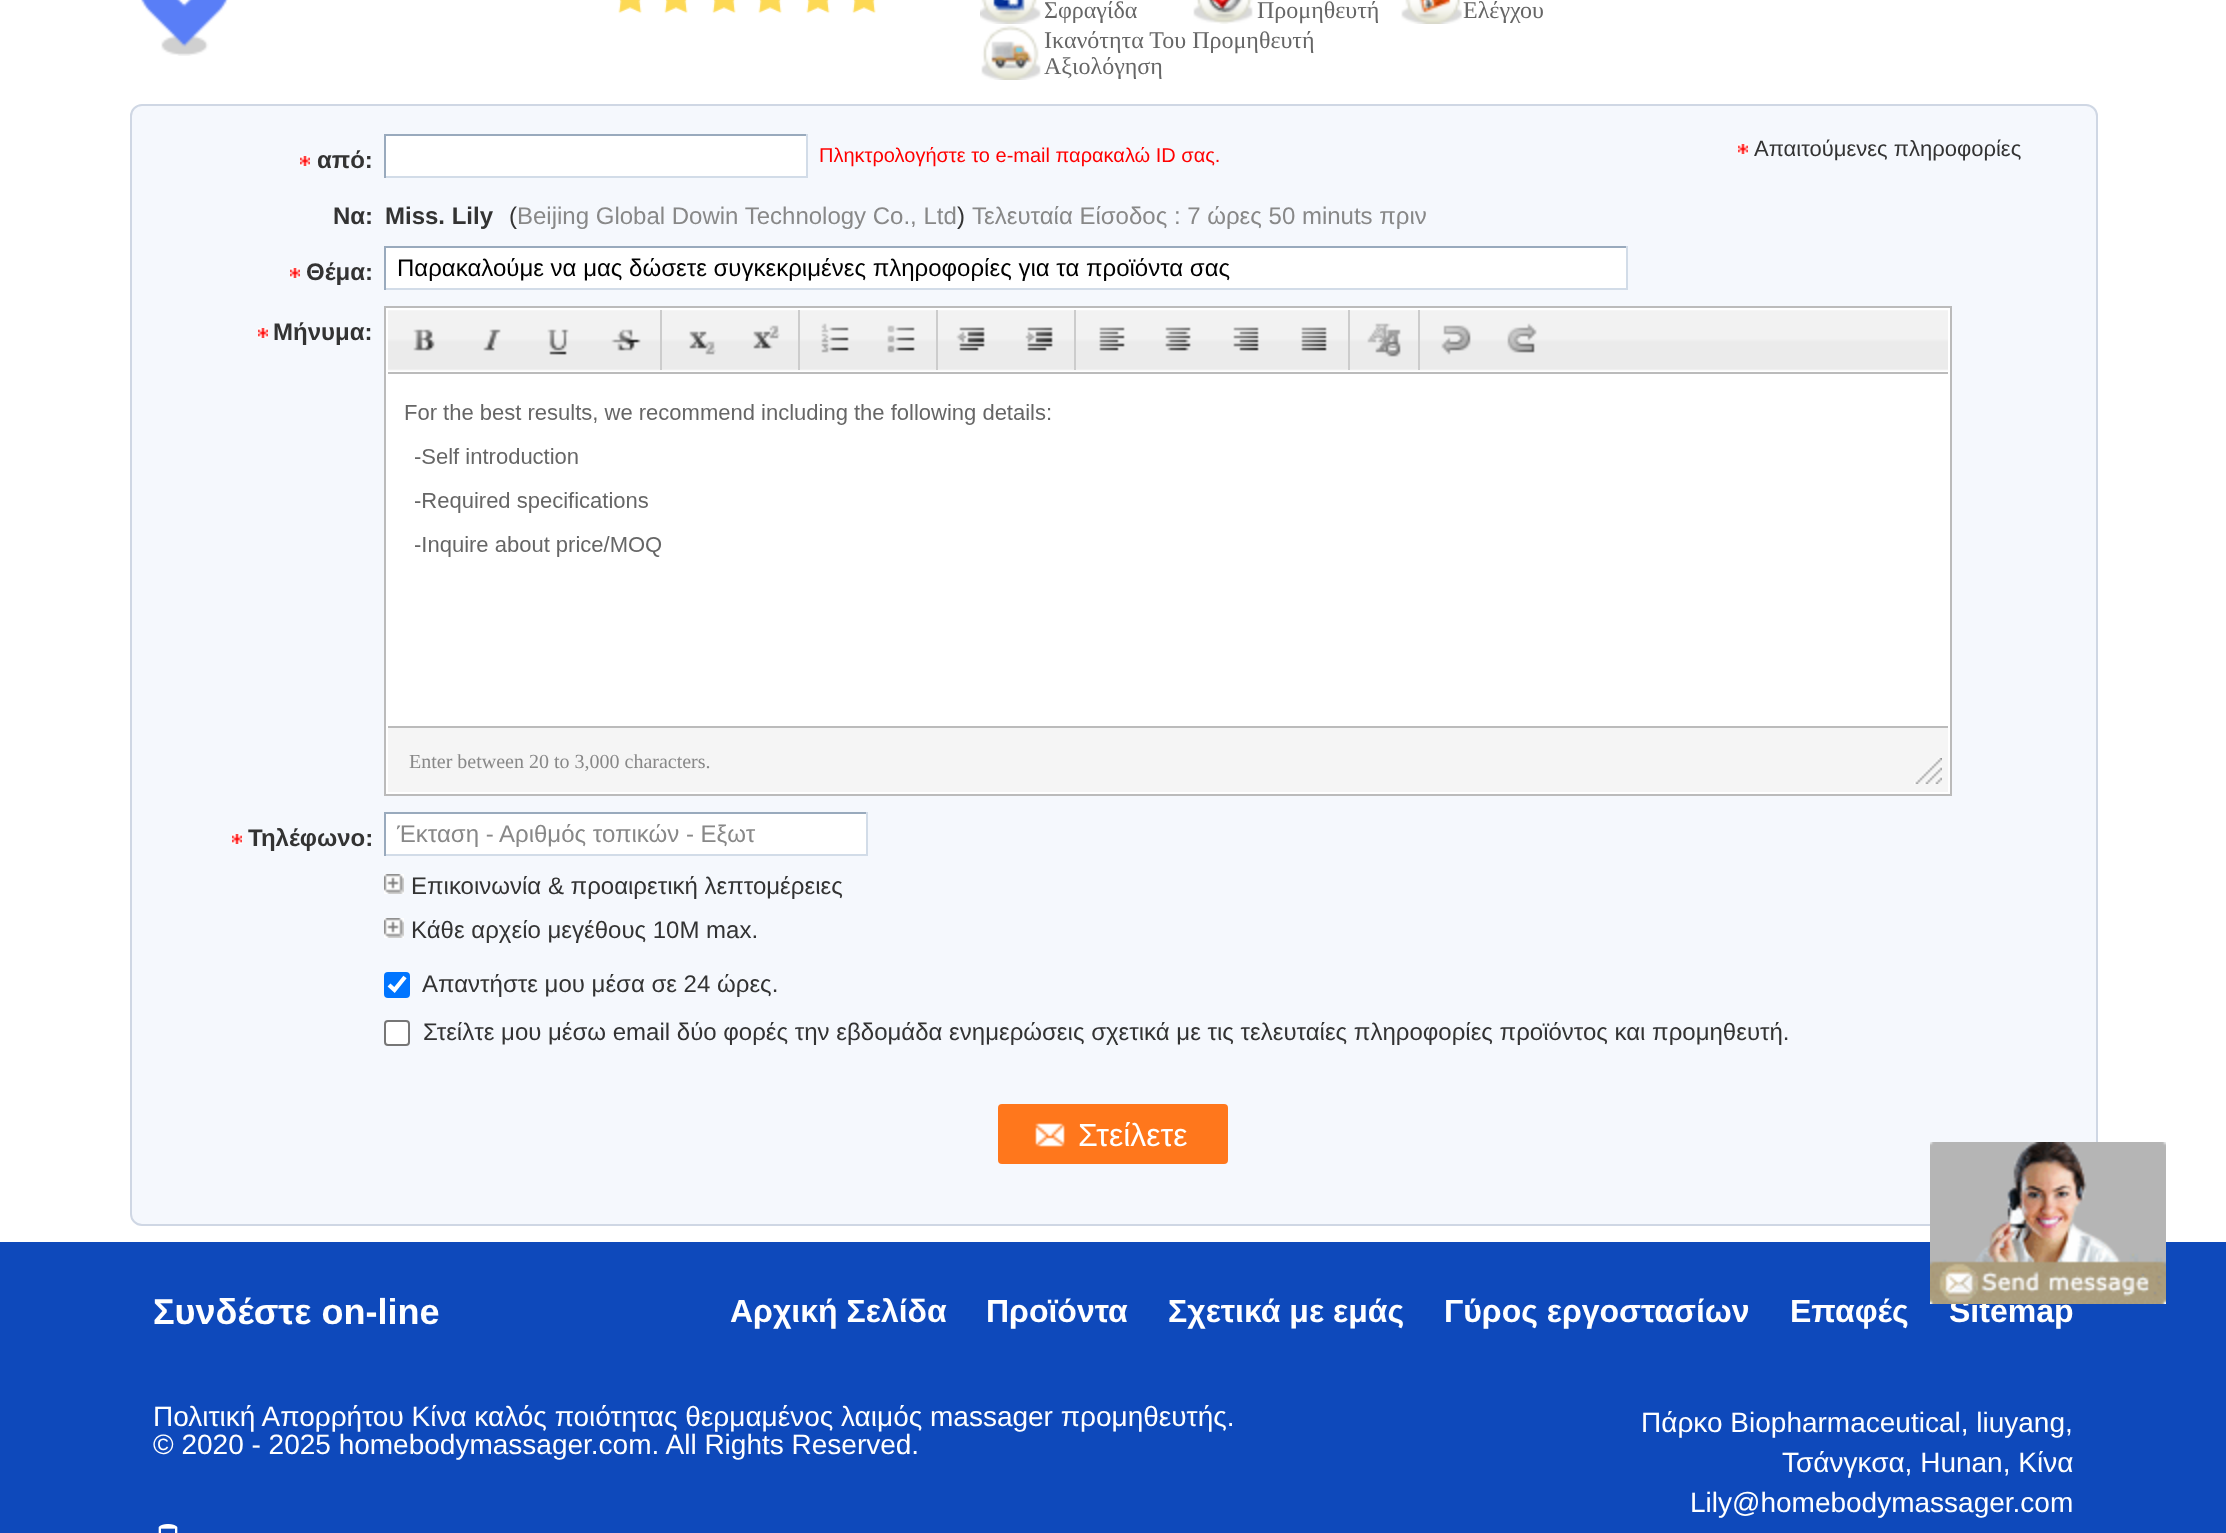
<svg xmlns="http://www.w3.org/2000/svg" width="2226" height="1533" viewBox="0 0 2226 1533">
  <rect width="100%" height="100%" fill="#ffffff"/>
  <image x="141" y="0" width="87" height="56" href="img1.png"/>
  <image x="618" y="0" width="24" height="14" href="img2.png"/>
  <image x="664" y="0" width="24" height="14" href="img2.png"/>
  <image x="712" y="0" width="24" height="14" href="img3.png"/>
  <image x="758" y="0" width="24" height="14" href="img4.png"/>
  <image x="806" y="0" width="24" height="14" href="img3.png"/>
  <image x="852" y="0" width="24" height="14" href="img2.png"/>
  <image x="980" y="0" width="61" height="24" href="img5.png"/>
  <text x="1044" y="18" font-family="Liberation Serif" font-size="24" fill="#666666">Σφραγίδα</text>
  <image x="1193" y="0" width="60" height="24" href="img6.png"/>
  <text x="1257" y="18" font-family="Liberation Serif" font-size="24" fill="#666666">Προμηθευτή</text>
  <image x="1401" y="0" width="61" height="24" href="img7.png"/>
  <text x="1463" y="18" font-family="Liberation Serif" font-size="24" fill="#666666">Ελέγχου</text>
  <image x="981" y="25" width="60" height="55" href="img8.png"/>
  <text x="1044" y="48" font-family="Liberation Serif" font-size="24" fill="#666666">Ικανότητα Του Προμηθευτή</text>
  <text x="1044" y="74" font-family="Liberation Serif" font-size="24" fill="#666666">Αξιολόγηση</text>
  <rect x="131" y="105" width="1966" height="1120" rx="11" fill="#f5f8fd" stroke="#cfd7e4" stroke-width="2"/>
  <image x="300" y="156" width="10" height="10" href="img9.png"/>
  <text x="317" y="168" font-family="Liberation Sans" font-size="24" font-weight="bold" fill="#333333">από:</text>
  <rect x="386" y="136" width="420" height="40" fill="#ffffff"/>
  <rect x="384" y="134" width="424" height="2" fill="#99aabd"/>
  <rect x="806" y="134" width="2" height="44" fill="#d2dce8"/>
  <rect x="384" y="176" width="424" height="2" fill="#d2dce8"/>
  <rect x="384" y="134" width="2" height="44" fill="#99aabd"/>
  <text x="819" y="162" font-family="Liberation Sans" font-size="20" fill="#ff0000">Πληκτρολογήστε το e-mail παρακαλώ ID σας.</text>
  <image x="1738" y="144" width="10" height="10" href="img9.png"/>
  <text x="1754" y="156" font-family="Liberation Sans" font-size="22" fill="#333333">Απαιτούμενες πληροφορίες</text>
  <text x="333" y="224" font-family="Liberation Sans" font-size="24" font-weight="bold" fill="#333333">Να:</text>
  <text x="385" y="224" font-family="Liberation Sans" font-size="24" font-weight="bold" fill="#333333">Miss. Lily</text>
  <text x="509" y="224" font-family="Liberation Sans" font-size="24" fill="#333333">(</text>
  <text x="517" y="224" font-family="Liberation Sans" font-size="24" fill="#888888">Beijing Global Dowin Technology Co., Ltd</text>
  <text x="957" y="224" font-family="Liberation Sans" font-size="24" fill="#333333">)</text>
  <text x="972" y="224" font-family="Liberation Sans" font-size="24" fill="#888888">Τελευταία Είσοδος : 7 ώρες 50 minuts πριν</text>
  <image x="290" y="268" width="10" height="10" href="img9.png"/>
  <text x="306" y="280" font-family="Liberation Sans" font-size="24" font-weight="bold" fill="#333333">Θέμα:</text>
  <rect x="386" y="248" width="1240" height="40" fill="#ffffff"/>
  <rect x="384" y="246" width="1244" height="2" fill="#99aabd"/>
  <rect x="1626" y="246" width="2" height="44" fill="#d2dce8"/>
  <rect x="384" y="288" width="1244" height="2" fill="#d2dce8"/>
  <rect x="384" y="246" width="2" height="44" fill="#99aabd"/>
  <text x="397" y="276" font-family="Liberation Sans" font-size="24" fill="#000000">Παρακαλούμε να μας δώσετε συγκεκριμένες πληροφορίες για τα προϊόντα σας</text>
  <image x="258" y="328" width="10" height="10" href="img9.png"/>
  <text x="273" y="340" font-family="Liberation Sans" font-size="24" font-weight="bold" fill="#333333">Μήνυμα:</text>
  <rect x="385" y="307" width="1566" height="488" fill="#ffffff" stroke="#bbbbbb" stroke-width="2"/>
  <image x="388" y="310" width="1560" height="61" href="img10.png"/>
  <rect x="388" y="372" width="1560" height="2" fill="#bbbbbb"/>
  <image x="413" y="329" width="22" height="22" href="img11.png"/>
  <image x="483" y="329" width="18" height="22" href="img12.png"/>
  <image x="547" y="329" width="22" height="26" href="img13.png"/>
  <image x="611" y="329" width="30" height="22" href="img14.png"/>
  <rect x="660" y="310" width="2" height="60" fill="#cccccc"/>
  <image x="689" y="331" width="27" height="24" href="img15.png"/>
  <image x="753" y="325" width="27" height="24" href="img16.png"/>
  <rect x="798" y="310" width="2" height="60" fill="#cccccc"/>
  <image x="821" y="323" width="28" height="30" href="img17.png"/>
  <image x="887" y="325" width="28" height="28" href="img18.png"/>
  <rect x="936" y="310" width="2" height="60" fill="#cccccc"/>
  <image x="956" y="327" width="29" height="24" href="img19.png"/>
  <image x="1025" y="327" width="28" height="24" href="img20.png"/>
  <rect x="1074" y="310" width="2" height="60" fill="#cccccc"/>
  <image x="1099" y="327" width="26" height="24" href="img21.png"/>
  <image x="1165" y="327" width="26" height="24" href="img22.png"/>
  <image x="1233" y="327" width="26" height="24" href="img23.png"/>
  <image x="1301" y="327" width="26" height="24" href="img24.png"/>
  <rect x="1348" y="310" width="2" height="60" fill="#cccccc"/>
  <image x="1367" y="323" width="34" height="34" href="img25.png"/>
  <rect x="1418" y="310" width="2" height="60" fill="#cccccc"/>
  <image x="1441" y="325" width="30" height="30" href="img26.png"/>
  <image x="1507" y="323" width="30" height="30" href="img27.png"/>
  <image x="405" y="404" width="646" height="153" href="img28.png"/>
  <rect x="388" y="728" width="1560" height="64" fill="#f5f5f5"/>
  <rect x="388" y="726" width="1560" height="2" fill="#bbbbbb"/>
  <text x="409" y="768" font-family="Liberation Serif" font-size="20" fill="#888888">Enter between 20 to 3,000 characters.</text>
  <image x="1914" y="758" width="28" height="26" href="img29.png"/>
  <image x="232" y="834" width="10" height="10" href="img9.png"/>
  <text x="248" y="846" font-family="Liberation Sans" font-size="24" font-weight="bold" fill="#333333">Τηλέφωνο:</text>
  <rect x="386" y="814" width="480" height="40" fill="#ffffff"/>
  <rect x="384" y="812" width="484" height="2" fill="#99aabd"/>
  <rect x="866" y="812" width="2" height="44" fill="#d2dce8"/>
  <rect x="384" y="854" width="484" height="2" fill="#d2dce8"/>
  <rect x="384" y="812" width="2" height="44" fill="#99aabd"/>
  <text x="397" y="842" font-family="Liberation Sans" font-size="24" fill="#888888">Έκταση - Αριθμός τοπικών - Εξωτ</text>
  <image x="384" y="874" width="20" height="20" href="img30.png"/>
  <text x="411" y="894" font-family="Liberation Sans" font-size="24" fill="#333333">Επικοινωνία &amp; προαιρετική λεπτομέρειες</text>
  <image x="384" y="918" width="20" height="20" href="img30.png"/>
  <text x="411" y="938" font-family="Liberation Sans" font-size="24" fill="#333333">Κάθε αρχείο μεγέθους 10M max.</text>
  <rect x="384" y="972" width="26" height="26" rx="4" fill="#0075ff"/>
  <path d="M389 985L394.5 990L405 977" fill="none" stroke="#ffffff" stroke-width="4.2"/>
  <text x="422" y="992" font-family="Liberation Sans" font-size="24" fill="#333333">Απαντήστε μου μέσα σε 24 ώρες.</text>
  <rect x="385" y="1021" width="24" height="24" rx="3" fill="#ffffff" stroke="#767676" stroke-width="2"/>
  <text x="423" y="1040" font-family="Liberation Sans" font-size="24" fill="#333333">Στείλτε μου μέσω email δύο φορές την εβδομάδα ενημερώσεις σχετικά με τις τελευταίες πληροφορίες προϊόντος και προμηθευτή.</text>
  <rect x="998" y="1104" width="230" height="60" rx="4" fill="#ff771c"/>
  <image x="1035" y="1123" width="30" height="24" href="img31.png"/>
  <text x="1078" y="1146" font-family="Liberation Sans" font-size="32" fill="#ffffff">Στείλετε</text>
  <rect x="0" y="1242" width="2226" height="291" fill="#0e49bb"/>
  <text x="1949" y="1322" font-family="Liberation Sans" font-size="32" font-weight="bold" fill="#ffffff">Sitemap</text>
  <image x="1930" y="1142" width="236" height="162" href="img32.png"/>
  <text x="153" y="1324" font-family="Liberation Sans" font-size="36" font-weight="bold" fill="#ffffff">Συνδέστε on-line</text>
  <text x="730" y="1322" font-family="Liberation Sans" font-size="32" font-weight="bold" fill="#ffffff">Αρχική Σελίδα</text>
  <text x="986" y="1322" font-family="Liberation Sans" font-size="32" font-weight="bold" fill="#ffffff">Προϊόντα</text>
  <text x="1168" y="1322" font-family="Liberation Sans" font-size="32" font-weight="bold" fill="#ffffff">Σχετικά με εμάς</text>
  <text x="1444" y="1322" font-family="Liberation Sans" font-size="32" font-weight="bold" fill="#ffffff">Γύρος εργοστασίων</text>
  <text x="1790" y="1322" font-family="Liberation Sans" font-size="32" font-weight="bold" fill="#ffffff">Επαφές</text>
  <text x="153" y="1426" font-family="Liberation Sans" font-size="28" fill="#ffffff">Πολιτική Απορρήτου Κίνα καλός ποιότητας θερμαμένος λαιμός massager προμηθευτής.</text>
  <text x="153" y="1454" font-family="Liberation Sans" font-size="28" fill="#ffffff">© 2020 - 2025 homebodymassager.com. All Rights Reserved.</text>
  <text x="1641" y="1432" font-family="Liberation Sans" font-size="28" fill="#ffffff">Πάρκο Biopharmaceutical, liuyang,</text>
  <text x="1782" y="1472" font-family="Liberation Sans" font-size="28" fill="#ffffff">Τσάνγκσα, Hunan, Κίνα</text>
  <text x="1690" y="1512" font-family="Liberation Sans" font-size="28" fill="#ffffff">Lily@homebodymassager.com</text>
  <image x="158" y="1524" width="20" height="9" href="img33.png"/>
</svg>
